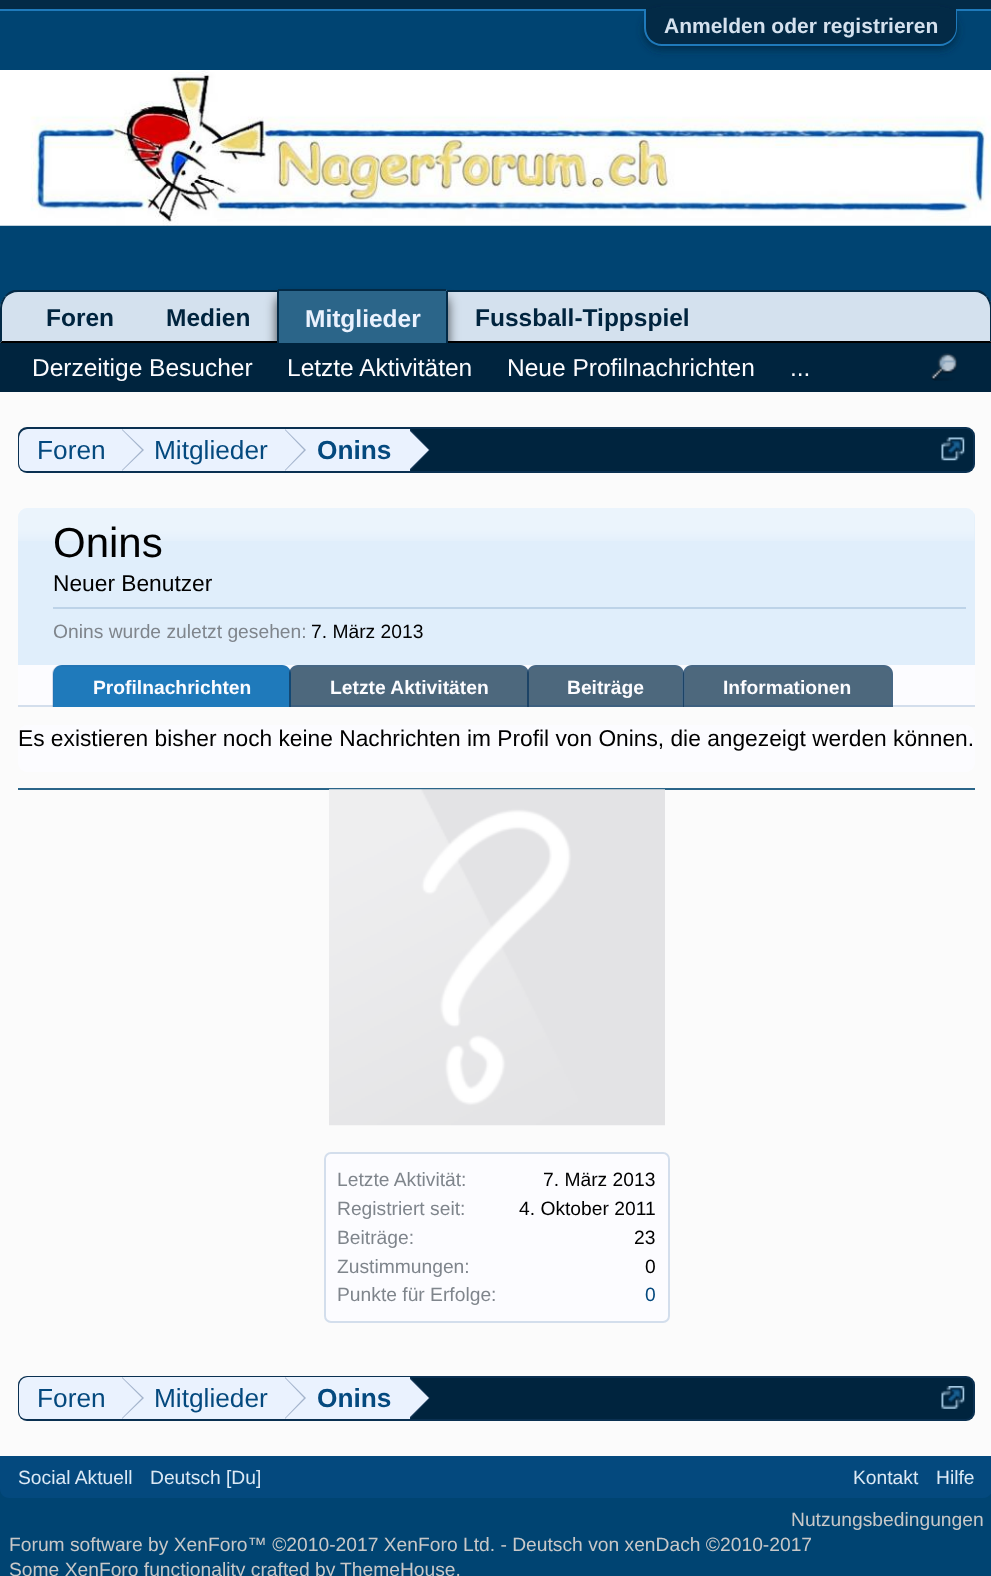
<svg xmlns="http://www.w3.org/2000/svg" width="991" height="1576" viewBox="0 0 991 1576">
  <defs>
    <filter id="blur1" x="-50%" y="-200%" width="200%" height="500%"><feGaussianBlur stdDeviation="4.5"/></filter>
    <filter id="blur2" x="-50%" y="-200%" width="200%" height="500%"><feGaussianBlur stdDeviation="6"/></filter>
    <clipPath id="clip1"><rect x="19" y="429" width="954" height="42" rx="7"/></clipPath>
    <clipPath id="clip2"><rect x="19" y="1377" width="954" height="42" rx="7"/></clipPath>
  </defs>
  <rect width="100%" height="100%" fill="#004472"/>
  <rect x="0" y="0" width="991" height="9" fill="#032a46"/>
  <rect x="0" y="9" width="991" height="2" fill="#1f7abb"/>
  <rect x="644" y="12" width="313" height="37" rx="18" fill="#032a46" filter="url(#blur1)"/>
  <path d="M644 9H957V28C957 38 949 46 939 46H662C652 46 644 38 644 28Z" fill="#032a46"/>
  <path d="M644 9H957V28C957 38 949 46 940 46H662C652 46 644 38 644 28ZM646 9H956V28C956 37 948 44 940 44H662C653 44 646 37 646 28Z" fill="#1f7abb" fill-rule="evenodd"/>
  <text x="664" y="33" font-family="Liberation Sans" font-size="21" font-weight="bold" fill="#d4e1ee">Anmelden oder registrieren</text>
  <image x="0" y="70" width="991" height="156" href="img1.png"/>
  <path d="M18 291H974C984 291 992 299 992 309V343H0V309C0 299 8 291 18 291Z" fill="#d4e1ee"/>
  <path d="M18 292C13 292 9 294 6 297L5 296C7 293 10 291 14 290H979C982 291 985 293 987 296L986 297C983 294 979 292 975 292Z" fill="#032a46"/>
  <path d="M987 296C990 299 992 303 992 308V343L990 341V308C990 304 988 300 986 297Z" fill="#032a46"/>
  <path d="M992 343L990 341H2L0 343Z" fill="#000000"/>
  <path d="M0 343L2 341V308C2 304 4 300 6 297L5 296C2 299 0 303 0 308Z" fill="#032a46"/>
  <text x="166" y="326" font-family="Liberation Sans" font-size="24.5" font-weight="bold" fill="#00243e">Medien</text>
  <text x="475" y="326" font-family="Liberation Sans" font-size="24.5" font-weight="bold" fill="#00243e">Fussball-Tippspiel</text>
  <rect x="277" y="298" width="171" height="54" rx="4" fill="#000000" fill-opacity="0.7" filter="url(#blur2)"/>
  <path d="M281 289H444C446 289 448 291 448 293V343H277V293C277 291 279 289 281 289Z" fill="#2b6589"/>
  <rect x="278" y="289" width="168" height="2" fill="#032a46"/>
  <rect x="446" y="291" width="2" height="52" fill="#032a46"/>
  <rect x="277" y="291" width="2" height="52" fill="#032a46"/>
  <text x="305" y="327" font-family="Liberation Sans" font-size="24.5" font-weight="bold" fill="#eaf2fe">Mitglieder</text>
  <rect x="0" y="343" width="991" height="49" fill="#00243e"/>
  <text x="32" y="376" font-family="Liberation Sans" font-size="24.5" fill="#fcfcff">Derzeitige Besucher</text>
  <text x="287" y="376" font-family="Liberation Sans" font-size="24.5" fill="#fcfcff">Letzte Aktivitäten</text>
  <text x="507" y="376" font-family="Liberation Sans" font-size="24.5" fill="#fcfcff">Neue Profilnachrichten</text>
  <text x="790" y="376" font-family="Liberation Sans" font-size="24.5" fill="#fcfcff">...</text>
  <text x="46" y="326" font-family="Liberation Sans" font-size="24.5" font-weight="bold" fill="#00243e">Foren</text>
  <image x="931" y="353" width="26" height="28" href="img2.png"/>
  <rect x="0" y="392" width="991" height="1064" fill="#fbfbfb"/>
  <rect x="18" y="427" width="957" height="46" rx="9" fill="#00243e"/>
  <rect x="19" y="428" width="955" height="44" rx="8" fill="none" stroke="#31669e" stroke-opacity="0.2" stroke-width="2"/>
  <g clip-path="url(#clip1)">
    <path d="M28 429H123V473H28C23 473 19 469 19 464V438C19 433 23 429 28 429Z" fill="#eaf2fe"/>
  </g>
  <text x="37" y="459" font-family="Liberation Sans" font-size="26.25" fill="#04497e">Foren</text>
  <rect x="123" y="429" width="287" height="42" fill="#eaf2fe"/>
  <path d="M122 471V429L144 450Z" fill="#a4b4cc"/>
  <path d="M121 471V429L142 450Z" fill="#eaf2fe"/>
  <text x="154" y="459" font-family="Liberation Sans" font-size="26.25" fill="#04497e">Mitglieder</text>
  <path d="M285 471V429L306 450Z" fill="#a4b4cc"/>
  <path d="M284 471V429L304 450Z" fill="#eaf2fe"/>
  <text x="317" y="459" font-family="Liberation Sans" font-size="26.25" font-weight="bold" fill="#04497e">Onins</text>
  <path d="M410 471V429L430 450Z" fill="#173958"/>
  <path d="M408 471V429L429 450Z" fill="#eaf2fe"/>
  <image x="941" y="437" width="24" height="24" href="img3.png"/>
  <rect x="18" y="788" width="957" height="2" fill="#2b6589"/>
  <rect x="18" y="508" width="957" height="197" rx="9" fill="#e0eefb"/>
  <image x="18" y="508" width="957" height="33" href="img4.png"/>
  <text x="53" y="557" font-family="Liberation Sans" font-size="42" fill="#000000">Onins</text>
  <text x="53" y="591" font-family="Liberation Sans" font-size="22.75" fill="#000000">Neuer Benutzer</text>
  <rect x="53" y="607" width="913" height="2" fill="#bdd3e8"/>
  <text x="53" y="638" font-family="Liberation Sans" font-size="19.25" fill="#7f858c">Onins wurde zuletzt gesehen:</text>
  <text x="311" y="638" font-family="Liberation Sans" font-size="19.25" fill="#000000">7. März 2013</text>
  <rect x="18" y="665" width="957" height="40" fill="#fcfcff"/>
  <rect x="18" y="705" width="957" height="2" fill="#d3deec"/>
  <path d="M62 665H282C287 665 291 669 291 674V707H53V674C53 669 57 665 62 665Z" fill="#1f7abb"/>
  <path d="M61 665H282C287 665 290 669 290 674V707H52V674C52 669 56 665 61 665ZM61 667H282C286 667 289 670 289 674V707H54V674C54 670 57 667 61 667Z" fill="#31669e" fill-opacity="0.2" fill-rule="evenodd"/>
  <text x="93" y="694" font-family="Liberation Sans" font-size="19.25" font-weight="bold" fill="#fcfcff">Profilnachrichten</text>
  <path d="M298 665H520C525 665 529 669 529 674V707H289V674C289 669 293 665 298 665Z" fill="#032a46" fill-opacity="0.7"/>
  <path d="M298 666H520C524.5 666 528 669.5 528 674V706H290V674C290 669.5 293.5 666 298 666Z" fill="none" stroke="#31669e" stroke-opacity="0.2" stroke-width="2"/>
  <text x="330" y="694" font-family="Liberation Sans" font-size="19.25" font-weight="bold" fill="#fcfcff">Letzte Aktivitäten</text>
  <path d="M536 665H675C680 665 684 669 684 674V707H527V674C527 669 531 665 536 665Z" fill="#032a46" fill-opacity="0.7"/>
  <path d="M536 666H675C679.5 666 683 669.5 683 674V706H528V674C528 669.5 531.5 666 536 666Z" fill="none" stroke="#31669e" stroke-opacity="0.2" stroke-width="2"/>
  <text x="567" y="694" font-family="Liberation Sans" font-size="19.25" font-weight="bold" fill="#fcfcff">Beiträge</text>
  <path d="M692 665H884C889 665 893 669 893 674V707H683V674C683 669 687 665 692 665Z" fill="#032a46" fill-opacity="0.7"/>
  <path d="M692 666H884C888.5 666 892 669.5 892 674V706H684V674C684 669.5 687.5 666 692 666Z" fill="none" stroke="#31669e" stroke-opacity="0.2" stroke-width="2"/>
  <text x="723" y="694" font-family="Liberation Sans" font-size="19.25" font-weight="bold" fill="#fcfcff">Informationen</text>
  <rect x="18" y="725" width="957" height="47" rx="9" fill="#fcfcff"/>
  <text x="18" y="746" font-family="Liberation Sans" font-size="22.75" fill="#000000">Es existieren bisher noch keine Nachrichten im Profil von Onins, die angezeigt werden können.</text>
  <image x="329" y="789" width="336" height="337" href="img5.png"/>
  <rect x="325" y="1153" width="344" height="169" rx="6" fill="#fcfcff" stroke="#d3deec" stroke-width="2"/>
  <text x="337" y="1186" font-family="Liberation Sans" font-size="19.25" fill="#7f858c">Letzte Aktivität:</text>
  <text x="543" y="1186" font-family="Liberation Sans" font-size="19.25" fill="#000000">7. März 2013</text>
  <text x="337" y="1215" font-family="Liberation Sans" font-size="19.25" fill="#7f858c">Registriert seit:</text>
  <text x="519" y="1215" font-family="Liberation Sans" font-size="19.25" fill="#000000">4. Oktober 2011</text>
  <text x="337" y="1244" font-family="Liberation Sans" font-size="19.25" fill="#7f858c">Beiträge:</text>
  <text x="634" y="1244" font-family="Liberation Sans" font-size="19.25" fill="#000000">23</text>
  <text x="337" y="1273" font-family="Liberation Sans" font-size="19.25" fill="#7f858c">Zustimmungen:</text>
  <text x="645" y="1273" font-family="Liberation Sans" font-size="19.25" fill="#000000">0</text>
  <text x="337" y="1301" font-family="Liberation Sans" font-size="19.25" fill="#7f858c">Punkte für Erfolge:</text>
  <text x="645" y="1301" font-family="Liberation Sans" font-size="19.25" fill="#04497e">0</text>
  <rect x="18" y="1376" width="957" height="45" rx="9" fill="#00243e"/>
  <rect x="19" y="1377" width="955" height="43" rx="8" fill="none" stroke="#31669e" stroke-opacity="0.2" stroke-width="2"/>
  <g clip-path="url(#clip2)">
    <path d="M28 1377H123V1421H28C23 1421 19 1417 19 1412V1386C19 1381 23 1377 28 1377Z" fill="#eaf2fe"/>
  </g>
  <text x="37" y="1407" font-family="Liberation Sans" font-size="26.25" fill="#04497e">Foren</text>
  <rect x="123" y="1377" width="287" height="42" fill="#eaf2fe"/>
  <path d="M122 1419V1377L144 1398Z" fill="#a4b4cc"/>
  <path d="M121 1419V1377L142 1398Z" fill="#eaf2fe"/>
  <text x="154" y="1407" font-family="Liberation Sans" font-size="26.25" fill="#04497e">Mitglieder</text>
  <path d="M285 1419V1377L306 1398Z" fill="#a4b4cc"/>
  <path d="M284 1419V1377L304 1398Z" fill="#eaf2fe"/>
  <text x="317" y="1407" font-family="Liberation Sans" font-size="26.25" font-weight="bold" fill="#04497e">Onins</text>
  <path d="M410 1419V1377L430 1398Z" fill="#173958"/>
  <path d="M408 1419V1377L429 1398Z" fill="#eaf2fe"/>
  <image x="941" y="1386" width="24" height="23" href="img6.png"/>
  <path d="M0 1456H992V1489C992 1494 988 1498 983 1498H9C4 1498 0 1494 0 1489Z" fill="#04497e"/>
  <text x="18" y="1484" font-family="Liberation Sans" font-size="19.25" fill="#dce9f5">Social Aktuell</text>
  <text x="150" y="1484" font-family="Liberation Sans" font-size="19.25" fill="#dce9f5">Deutsch [Du]</text>
  <text x="853" y="1484" font-family="Liberation Sans" font-size="19.25" fill="#dce9f5">Kontakt</text>
  <text x="936" y="1484" font-family="Liberation Sans" font-size="19.25" fill="#dce9f5">Hilfe</text>
  <text x="791" y="1526" font-family="Liberation Sans" font-size="19.25" fill="#c8c8c8">Nutzungsbedingungen</text>
  <text x="9" y="1551" font-family="Liberation Sans" font-size="19.25" fill="#c8c8c8">Forum software by XenForo™ ©2010-2017 XenForo Ltd. - Deutsch von xenDach ©2010-2017</text>
  <text x="9" y="1576" font-family="Liberation Sans" font-size="19.25" fill="#c8c8c8">Some XenForo functionality crafted by</text>
  <text x="340" y="1576" font-family="Liberation Sans" font-size="19.25" fill="#c8c8c8">ThemeHouse.</text>
</svg>
